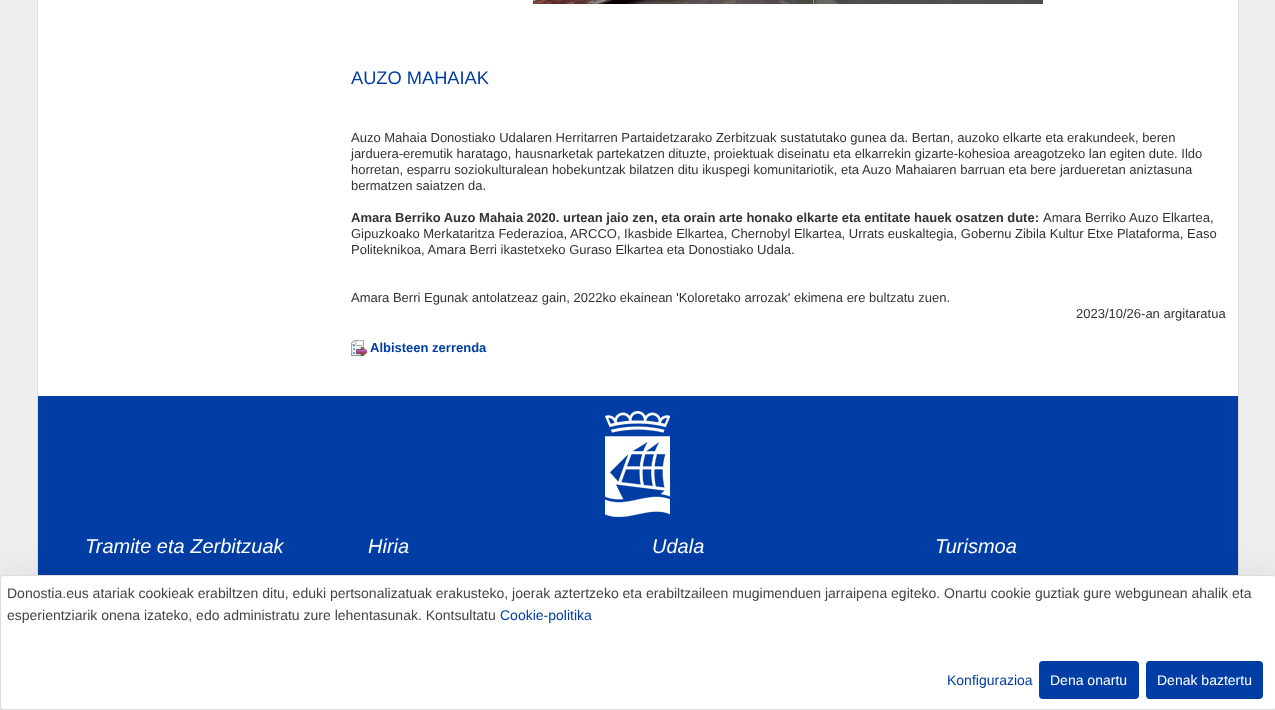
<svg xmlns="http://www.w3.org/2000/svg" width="1275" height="710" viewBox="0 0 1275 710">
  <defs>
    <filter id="blur1" x="-50%" y="-200%" width="200%" height="500%"><feGaussianBlur stdDeviation="24"/></filter>
  </defs>
  <rect width="100%" height="100%" fill="#eeeeee"/>
  <rect x="38" y="0" width="1200" height="396" fill="#ffffff"/>
  <rect x="37.5" y="-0.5" width="1201" height="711" fill="none" stroke="#dddddd"/>
  <image x="533" y="0" width="510" height="4" href="img1.png"/>
  <text x="351" y="84" font-family="Liberation Sans" font-size="18.25" fill="#003da5">AUZO MAHAIAK</text>
  <text x="351" y="142" font-family="Liberation Sans" font-size="13" fill="#333333">Auzo Mahaia Donostiako Udalaren Herritarren Partaidetzarako Zerbitzuak sustatutako gunea da. Bertan, auzoko elkarte eta erakundeek, beren</text>
  <text x="351" y="158" font-family="Liberation Sans" font-size="13" fill="#333333">jarduera-eremutik haratago, hausnarketak partekatzen dituzte, proiektuak diseinatu eta elkarrekin gizarte-kohesioa areagotzeko lan egiten dute. Ildo</text>
  <text x="351" y="174" font-family="Liberation Sans" font-size="13" fill="#333333">horretan, esparru soziokulturalean hobekuntzak bilatzen ditu ikuspegi komunitariotik, eta Auzo Mahaiaren barruan eta bere jardueretan aniztasuna</text>
  <text x="351" y="190" font-family="Liberation Sans" font-size="13" fill="#333333">bermatzen saiatzen da.</text>
  <text x="351" y="222" font-family="Liberation Sans" font-size="13" font-weight="bold" fill="#333333">Amara Berriko Auzo Mahaia 2020. urtean jaio zen, eta orain arte honako elkarte eta entitate hauek osatzen dute:</text>
  <text x="1043" y="222" font-family="Liberation Sans" font-size="13" fill="#333333">Amara Berriko Auzo Elkartea,</text>
  <text x="351" y="238" font-family="Liberation Sans" font-size="13" fill="#333333">Gipuzkoako Merkataritza Federazioa, ARCCO, Ikasbide Elkartea, Chernobyl Elkartea, Urrats euskaltegia, Gobernu Zibila Kultur Etxe Plataforma, Easo</text>
  <text x="351" y="254" font-family="Liberation Sans" font-size="13" fill="#333333">Politeknikoa, Amara Berri ikastetxeko Guraso Elkartea eta Donostiako Udala.</text>
  <text x="351" y="302" font-family="Liberation Sans" font-size="13" fill="#333333">Amara Berri Egunak antolatzeaz gain, 2022ko ekainean 'Koloretako arrozak' ekimena ere bultzatu zuen.</text>
  <text x="1076" y="318" font-family="Liberation Sans" font-size="13" fill="#333333">2023/10/26-an argitaratua</text>
  <image x="351" y="340" width="16" height="16" href="img2.png"/>
  <text x="370" y="352" font-family="Liberation Sans" font-size="13" font-weight="bold" fill="#003da5">Albisteen zerrenda</text>
  <rect x="38" y="396" width="1200" height="179" fill="#003da5"/>
  <image x="605" y="411" width="65" height="106" href="img3.png"/>
  <text x="85" y="553" font-family="Liberation Sans" font-size="20" font-style="italic" fill="#ffffff">Tramite eta Zerbitzuak</text>
  <text x="368" y="553" font-family="Liberation Sans" font-size="20" font-style="italic" fill="#ffffff">Hiria</text>
  <text x="652" y="553" font-family="Liberation Sans" font-size="20" font-style="italic" fill="#ffffff">Udala</text>
  <text x="935" y="553" font-family="Liberation Sans" font-size="20" font-style="italic" fill="#ffffff">Turismoa</text>
  <rect x="0" y="591" width="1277" height="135" rx="4" fill="#000000" fill-opacity="0.18" filter="url(#blur1)"/>
  <rect x="0.5" y="575.5" width="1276" height="134" rx="3.5" fill="#ffffff" stroke="#dddddd"/>
  <text x="7" y="598" font-family="Liberation Sans" font-size="14" fill="#444444">Donostia.eus atariak cookieak erabiltzen ditu, eduki pertsonalizatuak erakusteko, joerak aztertzeko eta erabiltzaileen mugimenduen jarraipena egiteko. Onartu cookie guztiak gure webgunean ahalik eta</text>
  <text x="7" y="620" font-family="Liberation Sans" font-size="14" fill="#444444">esperientziarik onena izateko, edo administratu zure lehentasunak. Kontsultatu</text>
  <text x="500" y="620" font-family="Liberation Sans" font-size="14" fill="#003da5">Cookie-politika</text>
  <text x="947" y="685" font-family="Liberation Sans" font-size="14" fill="#003da5">Konfigurazioa</text>
  <rect x="1039" y="661" width="100" height="38" rx="4" fill="#003da5"/>
  <text x="1050" y="685" font-family="Liberation Sans" font-size="14" fill="#ffffff">Dena onartu</text>
  <rect x="1146" y="661" width="117" height="38" rx="4" fill="#003da5"/>
  <text x="1157" y="685" font-family="Liberation Sans" font-size="14" fill="#ffffff">Denak baztertu</text>
</svg>
